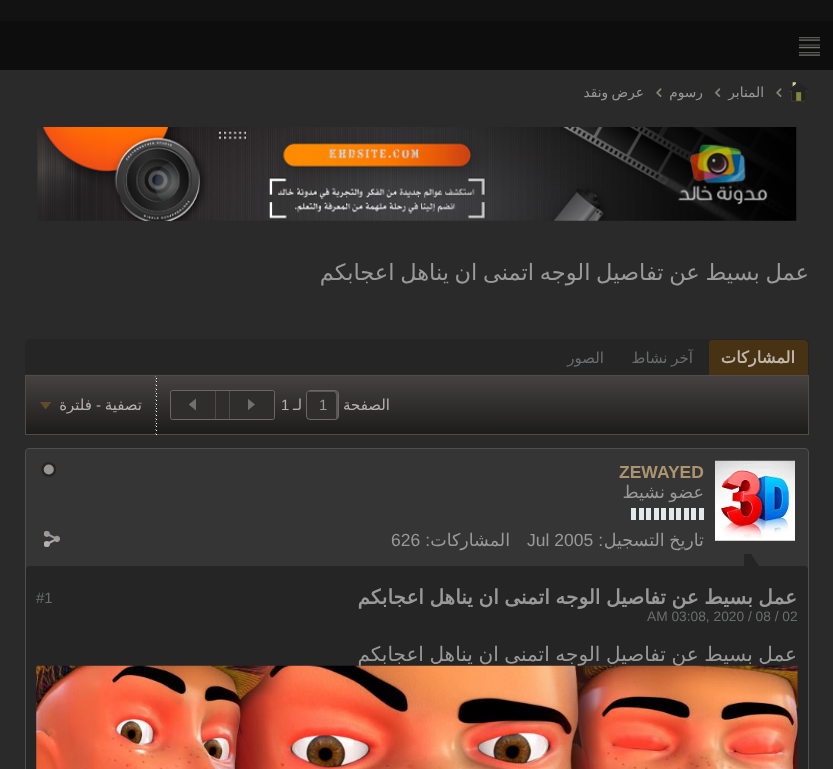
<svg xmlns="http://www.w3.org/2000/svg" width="833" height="769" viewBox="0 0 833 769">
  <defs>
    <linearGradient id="g1" gradientUnits="userSpaceOnUse" x1="417" y1="376" x2="417" y2="434"><stop offset="0" stop-color="#454240"/><stop offset="1" stop-color="#1c1c1b"/></linearGradient>
    <clipPath id="clip1"><rect x="53" y="585" width="745" height="39"/></clipPath>
  </defs>
  <rect width="100%" height="100%" fill="#121212"/>
  <rect x="0" y="21" width="833" height="49" fill="#0d0d0d"/>
  <image x="799" y="37" width="21" height="19" href="img1.png"/>
  <rect x="0" y="70" width="833" height="699" fill="#2a2a2a"/>
  <image x="789" y="82" width="20" height="20" href="img2.png"/>
  <image x="776" y="88" width="6" height="9" href="img3.png"/>
  <text x="764" y="97" font-family="DejaVu Sans" font-size="13.75" direction="rtl" fill="#9a9999">المنابر</text>
  <image x="715" y="88" width="6" height="9" href="img4.png"/>
  <text x="703" y="97" font-family="DejaVu Sans" font-size="13.75" direction="rtl" fill="#9a9999">رسوم</text>
  <image x="656" y="88" width="6" height="9" href="img3.png"/>
  <text x="644" y="97" word-spacing="-1" font-family="DejaVu Sans" font-size="13.75" direction="rtl" fill="#9a9999">عرض ونقد</text>
  <image x="37" y="127" width="760" height="94" href="img5.png"/>
  <text x="809" y="280" word-spacing="-1.5" font-family="DejaVu Sans" font-size="22.5" direction="rtl" fill="#9a9999">عمل بسيط عن تفاصيل الوجه اتمنى ان يناهل اعجابكم</text>
  <path d="M30 339H804C807 339 809 341 809 344V374H25V344C25 341 27 339 30 339Z" fill="#252525"/>
  <path d="M558 339H805C807 339 809 341 809 343V371C809 373 807 375 805 375H554V343C554 341 556 339 558 339Z" fill="#252525"/>
  <path d="M713 339H804C807 339 809 341 809 344V375H708V344C708 341 710 339 713 339Z" fill="#483214"/>
  <path d="M712 339H804C807 339 809 341 809 344V375H708V344C708 341 710 339 712 339ZM712 340H804C806 340 808 342 808 344V375H709V344C709 342 710 340 712 340Z" fill="#252525" fill-rule="evenodd"/>
  <text x="795" y="363" font-family="DejaVu Sans" font-size="16.25" font-weight="bold" direction="rtl" fill="#c1b8ab">المشاركات</text>
  <text x="693" y="363" word-spacing="-1" font-family="DejaVu Sans" font-size="15" direction="rtl" fill="#6a6d6f">آخر نشاط</text>
  <text x="604" y="363" font-family="DejaVu Sans" font-size="15" direction="rtl" fill="#6a6d6f">الصور</text>
  <rect x="26" y="376" width="782" height="58" fill="url(#g1)"/>
  <rect x="25.5" y="375.5" width="783" height="59" fill="none" stroke="#514c48"/>
  <text x="390" y="410" font-family="DejaVu Sans" font-size="15" direction="rtl" fill="#b6afad">الصفحة</text>
  <rect x="306" y="390" width="33" height="30" rx="4" fill="#302e2d"/>
  <path d="M309 392H334C335 392 336 394 336 395V418L335.5 419C337 419 338 418 338 416.5V393.5C338 392 337 391 335.5 391H310.5C309.5 391 309 391.5 308.5 392Z" fill="#595857"/>
  <rect x="306.5" y="390.5" width="32" height="29" rx="3.5" fill="none" stroke="#6c6764"/>
  <text x="319" y="410" font-family="Liberation Sans" font-size="15" fill="#9a9999">1</text>
  <text x="302" y="410" font-family="DejaVu Sans" font-size="15" direction="rtl" fill="#b6afad">لـ</text>
  <text x="281" y="410" font-family="Liberation Sans" font-size="15" fill="#b6afad">1</text>
  <rect x="170.5" y="390.5" width="104" height="29" rx="2" fill="#302e2d" stroke="#6c6764"/>
  <rect x="229" y="391" width="1" height="28" fill="#4d4946"/>
  <image x="248" y="399" width="7" height="11" href="img6.png"/>
  <rect x="215" y="391" width="1" height="28" fill="#4d4946"/>
  <image x="189" y="398" width="7" height="13" href="img7.png"/>
  <image x="155" y="376" width="1" height="58" href="img8.png"/>
  <image x="156" y="378" width="1" height="57" href="img9.png"/>
  <text x="142" y="410" font-family="DejaVu Sans" font-size="15" direction="rtl" fill="#b6afad">تصفية</text>
  <text x="101" y="410" font-family="Liberation Sans" font-size="15" direction="rtl" fill="#b6afad">-</text>
  <text x="92" y="410" font-family="DejaVu Sans" font-size="15" direction="rtl" fill="#b6afad">فلترة</text>
  <image x="40" y="402" width="11" height="8" href="img10.png"/>
  <rect x="25.5" y="448.5" width="783" height="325" rx="3.5" fill="#353535" stroke="#524e4c"/>
  <image x="715" y="460" width="80" height="81" href="img11.png"/>
  <text x="619" y="478" font-family="Liberation Sans" font-size="17.5" font-weight="bold" fill="#ad936e">ZEWAYED</text>
  <image x="41" y="462" width="15" height="15" href="img12.png"/>
  <text x="704" y="498" word-spacing="-1" font-family="DejaVu Sans" font-size="17.5" direction="rtl" fill="#9a9999">عضو نشيط</text>
  <rect x="699" y="508" width="5" height="12" fill="#e5e8e9"/>
  <rect x="691" y="508" width="5" height="12" fill="#e5e8e9"/>
  <rect x="684" y="508" width="5" height="12" fill="#e5e8e9"/>
  <rect x="676" y="508" width="5" height="12" fill="#e5e8e9"/>
  <rect x="669" y="508" width="5" height="12" fill="#e5e8e9"/>
  <rect x="661" y="508" width="5" height="12" fill="#e5e8e9"/>
  <rect x="654" y="508" width="5" height="12" fill="#e5e8e9"/>
  <rect x="646" y="508" width="5" height="12" fill="#e5e8e9"/>
  <rect x="639" y="508" width="5" height="12" fill="#e5e8e9"/>
  <rect x="631" y="508" width="5" height="12" fill="#e5e8e9"/>
  <text x="704" y="546" word-spacing="-1" font-family="DejaVu Sans" font-size="17.5" direction="rtl" fill="#9a9999">تاريخ التسجيل</text>
  <text x="603" y="546" font-family="Liberation Sans" font-size="17.5" direction="rtl" fill="#9a9999">:</text>
  <text x="527" y="546" font-family="Liberation Sans" font-size="17.5" fill="#9a9999">Jul 2005</text>
  <text x="510" y="546" font-family="DejaVu Sans" font-size="17.5" direction="rtl" fill="#9a9999">المشاركات</text>
  <text x="430" y="546" font-family="Liberation Sans" font-size="17.5" direction="rtl" fill="#9a9999">:</text>
  <text x="391" y="546" font-family="Liberation Sans" font-size="17.5" fill="#9a9999">626</text>
  <image x="44" y="531" width="16" height="16" href="img13.png"/>
  <rect x="26" y="566" width="782" height="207" rx="4" fill="#252525"/>
  <path d="M759 566H744L751 554Z" fill="#252525"/>
  <rect x="744" y="554" width="7" height="12" fill="#252525"/>
  <g clip-path="url(#clip1)">
    <text x="797" y="604" word-spacing="-0.75" font-family="DejaVu Sans" font-size="20" font-weight="bold" direction="rtl" fill="#9a9999">عمل بسيط عن تفاصيل الوجه اتمنى ان يناهل اعجابكم</text>
  </g>
  <text x="647" y="621" font-family="Liberation Sans" font-size="13.75" fill="#6a6d6f">AM 03:08, 2020 / 08 / 02</text>
  <text x="36" y="603" font-family="Liberation Sans" font-size="15" fill="#6a6d6f">#1</text>
  <text x="797" y="661" word-spacing="-0.75" font-family="DejaVu Sans" font-size="20" direction="rtl" fill="#9a9999">عمل بسيط عن تفاصيل الوجه اتمنى ان يناهل اعجابكم</text>
  <image x="36" y="665" width="762" height="104" href="img14.png"/>
</svg>
